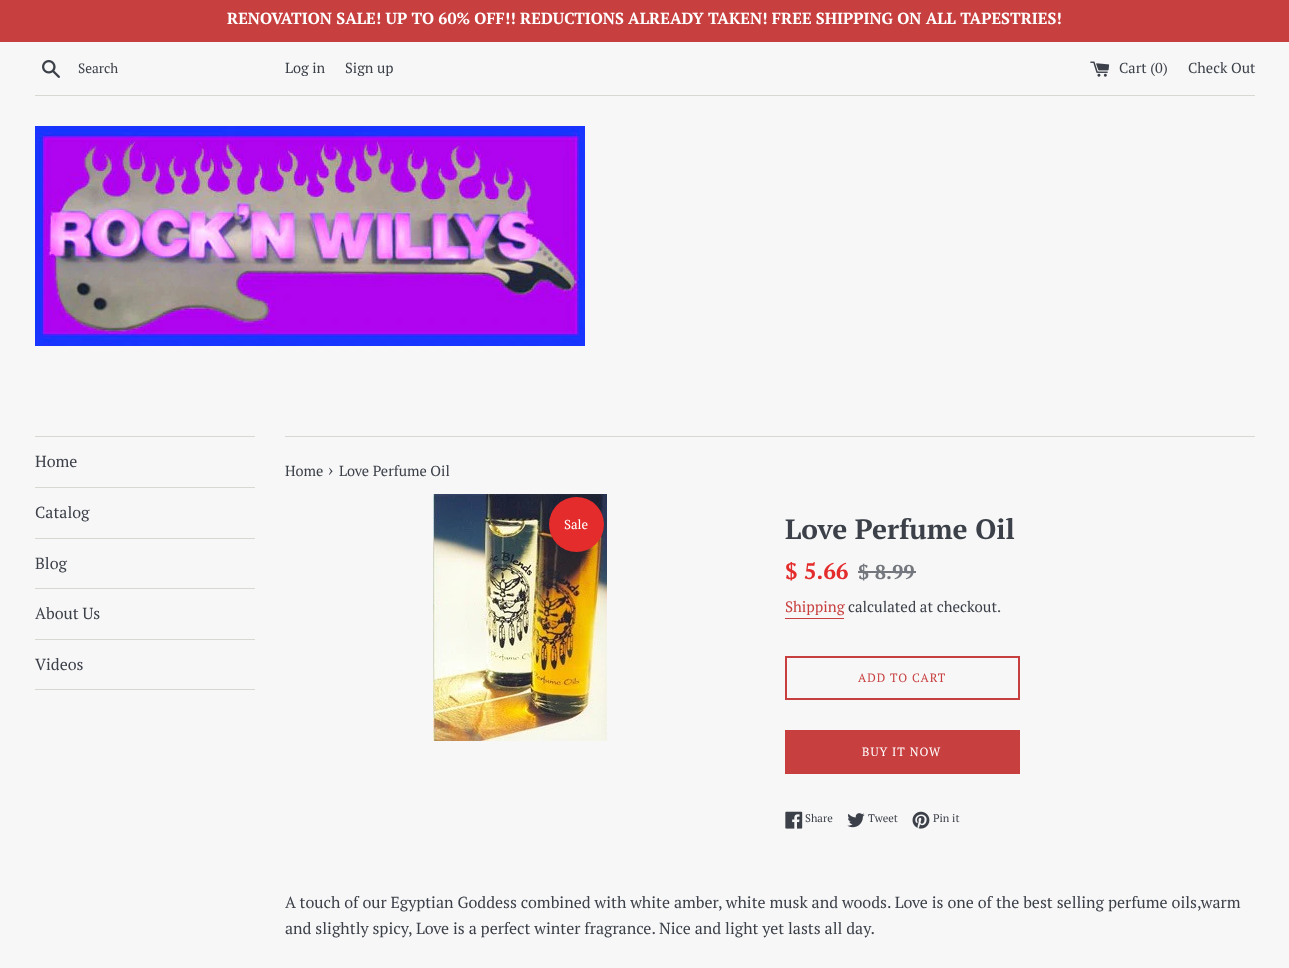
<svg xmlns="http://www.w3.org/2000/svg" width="1289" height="968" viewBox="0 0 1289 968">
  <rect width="100%" height="100%" fill="#f7f7f7"/>
  <rect x="0" y="0" width="1289" height="42" fill="#c83f3f"/>
  <text x="227" y="24" font-family="PT Serif" font-size="16" font-weight="bold" fill="#ffffff">RENOVATION SALE! UP TO 60% OFF!! REDUCTIONS ALREADY TAKEN! FREE SHIPPING ON ALL TAPESTRIES!</text>
  <image x="42" y="60" width="18" height="18" href="img1.png"/>
  <text x="78" y="73" font-family="PT Serif" font-size="13.5" fill="#3c4049">Search</text>
  <text x="285" y="73" font-family="PT Serif" font-size="14.5" fill="#3c4049">Log in</text>
  <text x="345" y="73" font-family="PT Serif" font-size="14.5" fill="#3c4049">Sign up</text>
  <image x="1090" y="61" width="20" height="16" href="img2.png"/>
  <text x="1119" y="73" font-family="PT Serif" font-size="14.5" fill="#3c4049">Cart (0)</text>
  <text x="1188" y="73" font-family="PT Serif" font-size="14.5" fill="#3c4049">Check Out</text>
  <rect x="35" y="95" width="1220" height="1" fill="#d7d8d2"/>
  <image x="35" y="126" width="550" height="220" href="img3.png"/>
  <rect x="35" y="436" width="220" height="1" fill="#d7d8d2"/>
  <rect x="35" y="487" width="220" height="1" fill="#d7d8d2"/>
  <text x="35" y="467" font-family="PT Serif" font-size="16" fill="#3c4049">Home</text>
  <rect x="35" y="538" width="220" height="1" fill="#d7d8d2"/>
  <text x="35" y="518" font-family="PT Serif" font-size="16" fill="#3c4049">Catalog</text>
  <rect x="35" y="588" width="220" height="1" fill="#d7d8d2"/>
  <text x="35" y="569" font-family="PT Serif" font-size="16" fill="#3c4049">Blog</text>
  <rect x="35" y="639" width="220" height="1" fill="#d7d8d2"/>
  <text x="35" y="619" font-family="PT Serif" font-size="16" fill="#3c4049">About Us</text>
  <rect x="35" y="689" width="220" height="1" fill="#d7d8d2"/>
  <text x="35" y="670" font-family="PT Serif" font-size="16" fill="#3c4049">Videos</text>
  <rect x="285" y="436" width="970" height="1" fill="#d7d8d2"/>
  <text x="285" y="476" font-family="PT Serif" font-size="14.5" fill="#3c4049">Home</text>
  <text x="328" y="476" font-family="PT Serif" font-size="18" fill="#3c4049">›</text>
  <text x="339" y="476" font-family="PT Serif" font-size="14.5" fill="#3c4049">Love Perfume Oil</text>
  <image x="433" y="494" width="174" height="247" href="img4.png"/>
  <circle cx="576.5" cy="524.5" r="27.5" fill="#e32c2b"/>
  <text x="564" y="529" font-family="PT Serif" font-size="13" fill="#ffffff">Sale</text>
  <text x="785" y="539" font-family="PT Serif" font-size="28" font-weight="bold" fill="#3c4049">Love Perfume Oil</text>
  <text x="785" y="579" font-family="PT Serif" font-size="22.5" font-weight="bold" fill="#e32c2b">$ 5.66</text>
  <text x="858" y="579" font-family="PT Serif" font-size="20" font-weight="bold" fill="#74777d">$ 8.99</text>
  <rect x="858" y="571" width="58" height="2" fill="#74777d"/>
  <text x="785" y="612" font-family="PT Serif" font-size="15" fill="#c83f3f">Shipping</text>
  <rect x="785" y="618" width="59" height="1" fill="#c83f3f"/>
  <text x="848" y="612" font-family="PT Serif" font-size="15" fill="#3c4049">calculated at checkout.</text>
  <rect x="786" y="657" width="233" height="42" fill="none" stroke="#c83f3f" stroke-width="2"/>
  <text x="858" y="682" font-family="PT Serif" font-size="12" letter-spacing="1" fill="#c83f3f">ADD TO CART</text>
  <rect x="785" y="730" width="235" height="44" fill="#c83f3f"/>
  <text x="862" y="756" font-family="PT Serif" font-size="12" letter-spacing="1" fill="#ffffff">BUY IT NOW</text>
  <image x="785" y="811" width="18" height="18" href="img5.png"/>
  <text x="805" y="822" font-family="PT Serif" font-size="11" fill="#3c4049">Share</text>
  <image x="847" y="813" width="18" height="15" href="img6.png"/>
  <text x="868" y="822" font-family="PT Serif" font-size="11" fill="#3c4049">Tweet</text>
  <image x="912" y="811" width="18" height="18" href="img7.png"/>
  <text x="933" y="822" font-family="PT Serif" font-size="11" fill="#3c4049">Pin it</text>
  <text x="285" y="908" font-family="PT Serif" font-size="16" fill="#3c4049">A touch of our Egyptian Goddess combined with white amber, white musk and woods. Love is one of the best selling perfume oils,warm</text>
  <text x="285" y="934" font-family="PT Serif" font-size="16" fill="#3c4049">and slightly spicy, Love is a perfect winter fragrance. Nice and light yet lasts all day.</text>
</svg>
